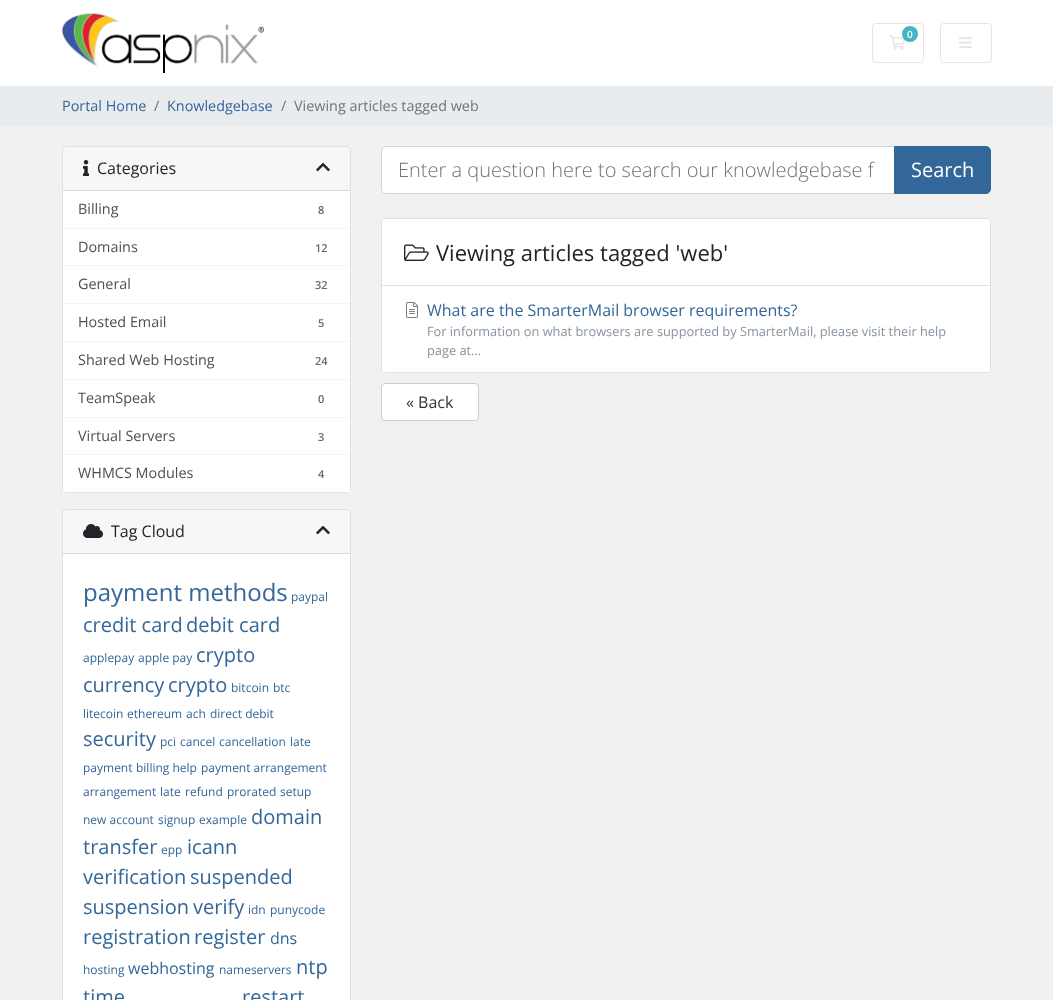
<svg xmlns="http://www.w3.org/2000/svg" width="1053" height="1000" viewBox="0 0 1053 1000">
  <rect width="100%" height="100%" fill="#f1f1f1"/>
  <rect x="0" y="0" width="1053" height="86" fill="#ffffff"/>
  <image x="62" y="13" width="202" height="60" href="img1.png"/>
  <rect x="872.5" y="23.5" width="51" height="39" rx="3.5" fill="none" stroke="#e5e5e5"/>
  <image x="889" y="35" width="16" height="15" href="img2.png"/>
  <circle cx="910" cy="34" r="8" fill="#17a2b8" fill-opacity="0.8"/>
  <text x="907" y="38" font-family="Open Sans" font-size="10" font-weight="600" fill="#ffffff">0</text>
  <rect x="940.5" y="23.5" width="51" height="39" rx="3.5" fill="none" stroke="#e5e5e5"/>
  <image x="959" y="37" width="13" height="11" href="img3.png"/>
  <rect x="0" y="86" width="1053" height="40" fill="#e9ecef"/>
  <text x="62" y="111" font-family="Open Sans" font-size="14.4" fill="#336699">Portal Home</text>
  <text x="154" y="111" font-family="Open Sans" font-size="14.4" fill="#6c757d">/</text>
  <text x="167" y="111" font-family="Open Sans" font-size="14.4" fill="#336699">Knowledgebase</text>
  <text x="281" y="111" font-family="Open Sans" font-size="14.4" fill="#6c757d">/</text>
  <text x="294" y="111" font-family="Open Sans" font-size="14.4" fill="#6c757d">Viewing articles tagged web</text>
  <rect x="62" y="146" width="289" height="347" rx="4" fill="#ffffff"/>
  <rect x="62.5" y="146.5" width="288" height="346" rx="3.5" fill="none" stroke="#000000" stroke-opacity="0.12"/>
  <rect x="63" y="147" width="287" height="43" fill="#000000" fill-opacity="0.03"/>
  <rect x="63" y="190" width="287" height="1" fill="#d8d8d8"/>
  <image x="83" y="160" width="6" height="16" href="img4.png"/>
  <text x="97" y="174" font-family="Open Sans" font-size="16" fill="#212529">Categories</text>
  <image x="316" y="162" width="14" height="10" href="img5.png"/>
  <rect x="63" y="228" width="287" height="1" fill="#f5f5f5"/>
  <text x="78" y="214" font-family="Open Sans" font-size="14.4" fill="#495057">Billing</text>
  <text x="318" y="214" font-family="Open Sans" font-size="11" font-weight="600" fill="#666666">8</text>
  <rect x="63" y="265" width="287" height="1" fill="#f5f5f5"/>
  <text x="78" y="252" font-family="Open Sans" font-size="14.4" fill="#495057">Domains</text>
  <text x="315" y="252" font-family="Open Sans" font-size="11" font-weight="600" fill="#666666">12</text>
  <rect x="63" y="303" width="287" height="1" fill="#f5f5f5"/>
  <text x="78" y="289" font-family="Open Sans" font-size="14.4" fill="#495057">General</text>
  <text x="315" y="289" font-family="Open Sans" font-size="11" font-weight="600" fill="#666666">32</text>
  <rect x="63" y="341" width="287" height="1" fill="#f5f5f5"/>
  <text x="78" y="327" font-family="Open Sans" font-size="14.4" fill="#495057">Hosted Email</text>
  <text x="318" y="327" font-family="Open Sans" font-size="11" font-weight="600" fill="#666666">5</text>
  <rect x="63" y="379" width="287" height="1" fill="#f5f5f5"/>
  <text x="78" y="365" font-family="Open Sans" font-size="14.4" fill="#495057">Shared Web Hosting</text>
  <text x="315" y="365" font-family="Open Sans" font-size="11" font-weight="600" fill="#666666">24</text>
  <rect x="63" y="417" width="287" height="1" fill="#f5f5f5"/>
  <text x="78" y="403" font-family="Open Sans" font-size="14.4" fill="#495057">TeamSpeak</text>
  <text x="318" y="403" font-family="Open Sans" font-size="11" font-weight="600" fill="#666666">0</text>
  <rect x="63" y="454" width="287" height="1" fill="#f5f5f5"/>
  <text x="78" y="441" font-family="Open Sans" font-size="14.4" fill="#495057">Virtual Servers</text>
  <text x="318" y="441" font-family="Open Sans" font-size="11" font-weight="600" fill="#666666">3</text>
  <rect x="63" y="489" width="287" height="3" fill="#ffffff"/>
  <text x="78" y="478" font-family="Open Sans" font-size="14.4" fill="#495057">WHMCS Modules</text>
  <text x="318" y="478" font-family="Open Sans" font-size="11" font-weight="600" fill="#666666">4</text>
  <rect x="62" y="509" width="289" height="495" rx="4" fill="#ffffff"/>
  <rect x="62.5" y="509.5" width="288" height="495" rx="3.5" fill="none" stroke="#000000" stroke-opacity="0.12"/>
  <rect x="63" y="510" width="287" height="43" fill="#000000" fill-opacity="0.03"/>
  <rect x="63" y="553" width="287" height="1" fill="#d8d8d8"/>
  <image x="83" y="524" width="20" height="14" href="img6.png"/>
  <text x="111" y="537" font-family="Open Sans" font-size="16" fill="#212529">Tag Cloud</text>
  <image x="316" y="525" width="14" height="10" href="img5.png"/>
  <text x="83" y="601" font-family="Open Sans" font-size="24" fill="#336699">payment methods</text>
  <text x="291" y="601" font-family="Open Sans" font-size="12" fill="#336699">paypal</text>
  <text x="83" y="632" font-family="Open Sans" font-size="20" fill="#336699">credit card</text>
  <text x="186" y="632" font-family="Open Sans" font-size="20" fill="#336699">debit card</text>
  <text x="83" y="662" font-family="Open Sans" font-size="12" fill="#336699">applepay</text>
  <text x="138" y="662" font-family="Open Sans" font-size="12" fill="#336699">apple pay</text>
  <text x="196" y="662" font-family="Open Sans" font-size="20" fill="#336699">crypto</text>
  <text x="83" y="692" font-family="Open Sans" font-size="20" fill="#336699">currency</text>
  <text x="168" y="692" font-family="Open Sans" font-size="20" fill="#336699">crypto</text>
  <text x="231" y="692" font-family="Open Sans" font-size="12" fill="#336699">bitcoin</text>
  <text x="273" y="692" font-family="Open Sans" font-size="12" fill="#336699">btc</text>
  <text x="83" y="718" font-family="Open Sans" font-size="12" fill="#336699">litecoin</text>
  <text x="127" y="718" font-family="Open Sans" font-size="12" fill="#336699">ethereum</text>
  <text x="186" y="718" font-family="Open Sans" font-size="12" fill="#336699">ach</text>
  <text x="210" y="718" font-family="Open Sans" font-size="12" fill="#336699">direct debit</text>
  <text x="83" y="746" font-family="Open Sans" font-size="20" fill="#336699">security</text>
  <text x="160" y="746" font-family="Open Sans" font-size="12" fill="#336699">pci</text>
  <text x="180" y="746" font-family="Open Sans" font-size="12" fill="#336699">cancel</text>
  <text x="219" y="746" font-family="Open Sans" font-size="12" fill="#336699">cancellation</text>
  <text x="290" y="746" font-family="Open Sans" font-size="12" fill="#336699">late</text>
  <text x="83" y="772" font-family="Open Sans" font-size="12" fill="#336699">payment</text>
  <text x="136" y="772" font-family="Open Sans" font-size="12" fill="#336699">billing help</text>
  <text x="201" y="772" font-family="Open Sans" font-size="12" fill="#336699">payment arrangement</text>
  <text x="83" y="796" font-family="Open Sans" font-size="12" fill="#336699">arrangement</text>
  <text x="160" y="796" font-family="Open Sans" font-size="12" fill="#336699">late</text>
  <text x="185" y="796" font-family="Open Sans" font-size="12" fill="#336699">refund</text>
  <text x="227" y="796" font-family="Open Sans" font-size="12" fill="#336699">prorated</text>
  <text x="280" y="796" font-family="Open Sans" font-size="12" fill="#336699">setup</text>
  <text x="83" y="824" font-family="Open Sans" font-size="12" fill="#336699">new account</text>
  <text x="158" y="824" font-family="Open Sans" font-size="12" fill="#336699">signup</text>
  <text x="199" y="824" font-family="Open Sans" font-size="12" fill="#336699">example</text>
  <text x="251" y="824" font-family="Open Sans" font-size="20" fill="#336699">domain</text>
  <text x="83" y="854" font-family="Open Sans" font-size="20" fill="#336699">transfer</text>
  <text x="161" y="854" font-family="Open Sans" font-size="12" fill="#336699">epp</text>
  <text x="187" y="854" font-family="Open Sans" font-size="20" fill="#336699">icann</text>
  <text x="83" y="884" font-family="Open Sans" font-size="20" fill="#336699">verification</text>
  <text x="190" y="884" font-family="Open Sans" font-size="20" fill="#336699">suspended</text>
  <text x="83" y="914" font-family="Open Sans" font-size="20" fill="#336699">suspension</text>
  <text x="193" y="914" font-family="Open Sans" font-size="20" fill="#336699">verify</text>
  <text x="248" y="914" font-family="Open Sans" font-size="12" fill="#336699">idn</text>
  <text x="270" y="914" font-family="Open Sans" font-size="12" fill="#336699">punycode</text>
  <text x="83" y="944" font-family="Open Sans" font-size="20" fill="#336699">registration</text>
  <text x="194" y="944" font-family="Open Sans" font-size="20" fill="#336699">register</text>
  <text x="270" y="944" font-family="Open Sans" font-size="16" fill="#336699">dns</text>
  <text x="83" y="974" font-family="Open Sans" font-size="12" fill="#336699">hosting</text>
  <text x="128" y="974" font-family="Open Sans" font-size="16" fill="#336699">webhosting</text>
  <text x="219" y="974" font-family="Open Sans" font-size="12" fill="#336699">nameservers</text>
  <text x="296" y="974" font-family="Open Sans" font-size="20" fill="#336699">ntp</text>
  <text x="83" y="1004" font-family="Open Sans" font-size="20" fill="#336699">time</text>
  <text x="242" y="1004" font-family="Open Sans" font-size="20" fill="#336699">restart</text>
  <path d="M386 146.5H894.5V193.5H386C383.5 193.5 381.5 191.5 381.5 189V151C381.5 148.5 383.5 146.5 386 146.5Z" fill="#ffffff" stroke="#ced4da"/>
  <text x="398" y="177" font-family="Open Sans" font-size="20" font-weight="300" fill="#6c757d">Enter a question here to search our knowledgebase f</text>
  <path d="M894.5 146.5H986C988.5 146.5 990.5 148.5 990.5 151V189C990.5 191.5 988.5 193.5 986 193.5H894.5Z" fill="#336699" stroke="#336699"/>
  <text x="911" y="177" font-family="Open Sans" font-size="20" fill="#ffffff">Search</text>
  <rect x="381" y="218" width="610" height="155" rx="4" fill="#ffffff"/>
  <rect x="381.5" y="218.5" width="609" height="154" rx="3.5" fill="none" stroke="#000000" stroke-opacity="0.12"/>
  <image x="404" y="244" width="25" height="17" href="img7.png"/>
  <text x="436" y="261" font-family="Open Sans" font-size="22" fill="#212529">Viewing articles tagged 'web'</text>
  <rect x="382" y="285" width="608" height="1" fill="#dfdfdf"/>
  <path d="M382 286H990V369C990 370.5 988.5 372 987 372H385C383.5 372 382 370.5 382 369Z" fill="#ffffff"/>
  <image x="406" y="302" width="12" height="16" href="img8.png"/>
  <text x="427" y="316" font-family="Open Sans" font-size="16" fill="#336699">What are the SmarterMail browser requirements?</text>
  <text x="427" y="336" font-family="Open Sans" font-size="12.8" fill="#87939f">For information on what browsers are supported by SmarterMail, please visit their help</text>
  <text x="427" y="355" font-family="Open Sans" font-size="12.8" fill="#87939f">page at...</text>
  <rect x="381.5" y="383.5" width="97" height="37" rx="3.5" fill="#ffffff" stroke="#cccccc"/>
  <text x="406" y="408" font-family="Open Sans" font-size="16" fill="#333333">« Back</text>
</svg>
